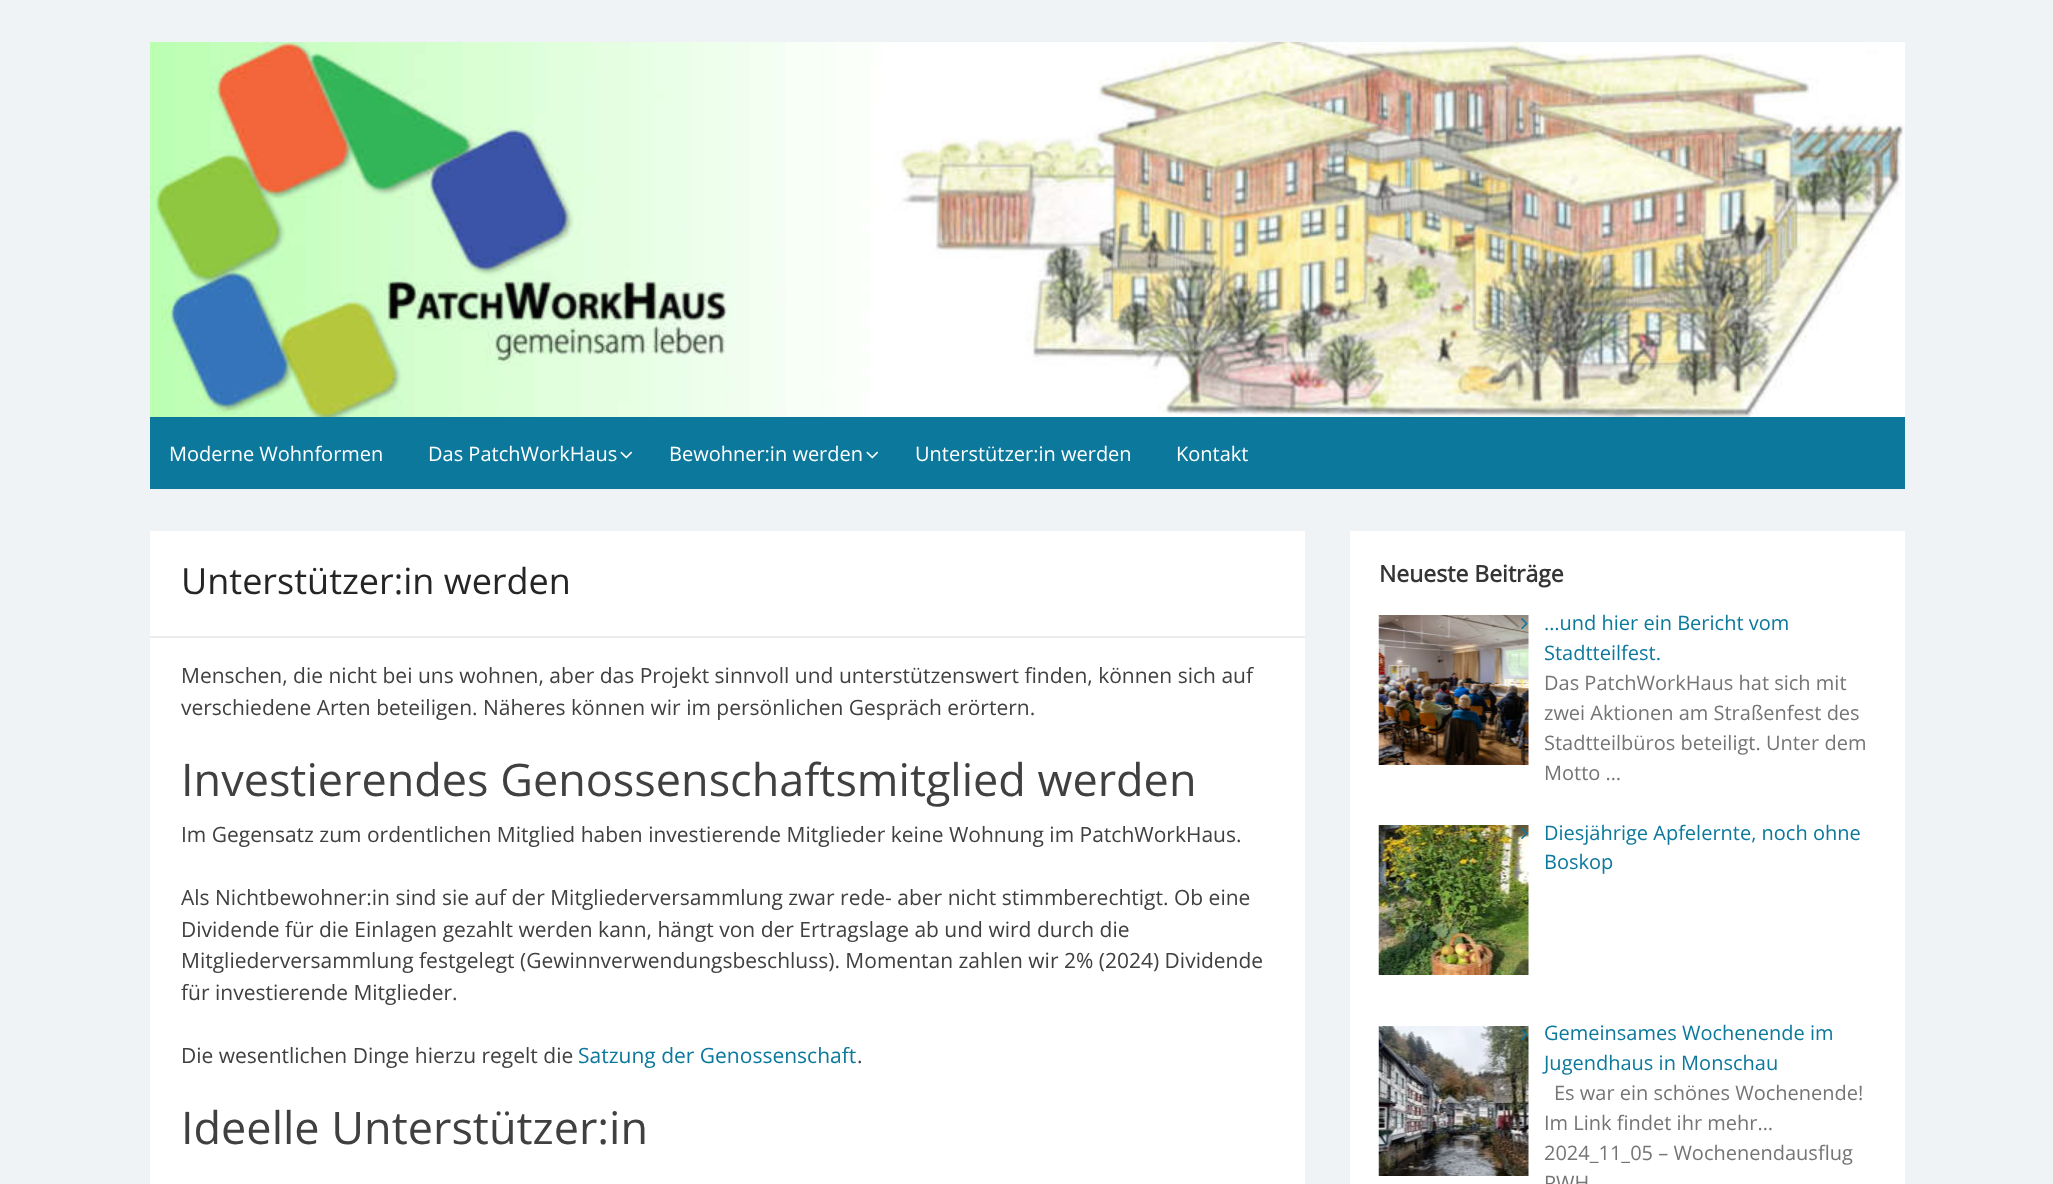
<svg xmlns="http://www.w3.org/2000/svg" width="2053" height="1184" viewBox="0 0 2053 1184">
  <rect width="100%" height="100%" fill="#f0f3f5"/>
  <image x="150" y="42" width="1755" height="375" href="img1.png"/>
  <rect x="150" y="417" width="1755" height="72" fill="#0b789c"/>
  <text x="169" y="461" font-family="Open Sans" font-size="20" fill="#ffffff">Moderne Wohnformen</text>
  <text x="428" y="461" font-family="Open Sans" font-size="20" fill="#ffffff">Das PatchWorkHaus</text>
  <image x="620" y="451" width="13" height="8" href="img2.png"/>
  <text x="669" y="461" font-family="Open Sans" font-size="20" fill="#ffffff">Bewohner:in werden</text>
  <image x="866" y="451" width="13" height="8" href="img2.png"/>
  <text x="915" y="461" font-family="Open Sans" font-size="20" fill="#ffffff">Unterstützer:in werden</text>
  <text x="1176" y="461" font-family="Open Sans" font-size="20" fill="#ffffff">Kontakt</text>
  <rect x="150" y="531" width="1155" height="653" fill="#ffffff"/>
  <rect x="150" y="636" width="1155" height="2" fill="#ededed"/>
  <text x="181" y="594" font-family="Open Sans" font-size="36" fill="#252525">Unterstützer:in werden</text>
  <text x="181" y="683" font-family="Open Sans" font-size="21" fill="#404040">Menschen, die nicht bei uns wohnen, aber das Projekt sinnvoll und unterstützenswert finden, können sich auf</text>
  <text x="181" y="715" font-family="Open Sans" font-size="21" fill="#404040">verschiedene Arten beteiligen. Näheres können wir im persönlichen Gespräch erörtern.</text>
  <text x="181" y="796" font-family="Open Sans" font-size="45" fill="#404040">Investierendes Genossenschaftsmitglied werden</text>
  <text x="181" y="842" font-family="Open Sans" font-size="21" fill="#404040">Im Gegensatz zum ordentlichen Mitglied haben investierende Mitglieder keine Wohnung im PatchWorkHaus.</text>
  <text x="181" y="905" font-family="Open Sans" font-size="21" fill="#404040">Als Nichtbewohner:in sind sie auf der Mitgliederversammlung zwar rede- aber nicht stimmberechtigt. Ob eine</text>
  <text x="181" y="937" font-family="Open Sans" font-size="21" fill="#404040">Dividende für die Einlagen gezahlt werden kann, hängt von der Ertragslage ab und wird durch die</text>
  <text x="181" y="968" font-family="Open Sans" font-size="21" fill="#404040">Mitgliederversammlung festgelegt (Gewinnverwendungsbeschluss). Momentan zahlen wir 2% (2024) Dividende</text>
  <text x="181" y="1000" font-family="Open Sans" font-size="21" fill="#404040">für investierende Mitglieder.</text>
  <text x="181" y="1063" font-family="Open Sans" font-size="21" fill="#404040">Die wesentlichen Dinge hierzu regelt die</text>
  <text x="578" y="1063" font-family="Open Sans" font-size="21" fill="#0b789c">Satzung der Genossenschaft</text>
  <text x="857" y="1063" font-family="Open Sans" font-size="21" fill="#404040">.</text>
  <text x="181" y="1144" font-family="Open Sans" font-size="45" fill="#404040">Ideelle Unterstützer:in</text>
  <rect x="1350" y="531" width="555" height="653" fill="#ffffff"/>
  <text x="1379" y="582" font-family="Open Sans" font-size="23" font-weight="bold" fill="#353535">Neueste Beiträge</text>
  <image x="1378" y="615" width="151" height="150" href="img4.png"/>
  <image x="1521" y="618" width="7" height="12" href="img3.png"/>
  <text x="1544" y="630" font-family="Open Sans" font-size="20" fill="#0b789c">…und hier ein Bericht vom</text>
  <text x="1544" y="660" font-family="Open Sans" font-size="20" fill="#0b789c">Stadtteilfest.</text>
  <text x="1544" y="690" font-family="Open Sans" font-size="20" fill="#757575">Das PatchWorkHaus hat sich mit</text>
  <text x="1544" y="720" font-family="Open Sans" font-size="20" fill="#757575">zwei Aktionen am Straßenfest des</text>
  <text x="1544" y="750" font-family="Open Sans" font-size="20" fill="#757575">Stadtteilbüros beteiligt. Unter dem</text>
  <text x="1544" y="780" font-family="Open Sans" font-size="20" fill="#757575">Motto …</text>
  <image x="1378" y="825" width="151" height="150" href="img6.png"/>
  <image x="1521" y="828" width="7" height="12" href="img5.png"/>
  <text x="1544" y="840" font-family="Open Sans" font-size="20" fill="#0b789c">Diesjährige Apfelernte, noch ohne</text>
  <text x="1544" y="869" font-family="Open Sans" font-size="20" fill="#0b789c">Boskop</text>
  <image x="1378" y="1026" width="151" height="150" href="img8.png"/>
  <image x="1521" y="1029" width="7" height="11" href="img7.png"/>
  <text x="1544" y="1040" font-family="Open Sans" font-size="20" fill="#0b789c">Gemeinsames Wochenende im</text>
  <text x="1544" y="1070" font-family="Open Sans" font-size="20" fill="#0b789c">Jugendhaus in Monschau</text>
  <text x="1554" y="1100" font-family="Open Sans" font-size="20" fill="#757575">Es war ein schönes Wochenende!</text>
  <text x="1544" y="1130" font-family="Open Sans" font-size="20" fill="#757575">Im Link findet ihr mehr…</text>
  <text x="1544" y="1160" font-family="Open Sans" font-size="20" fill="#757575">2024_11_05 – Wochenendausflug</text>
  <text x="1544" y="1190" font-family="Open Sans" font-size="20" fill="#757575">PWH</text>
</svg>
